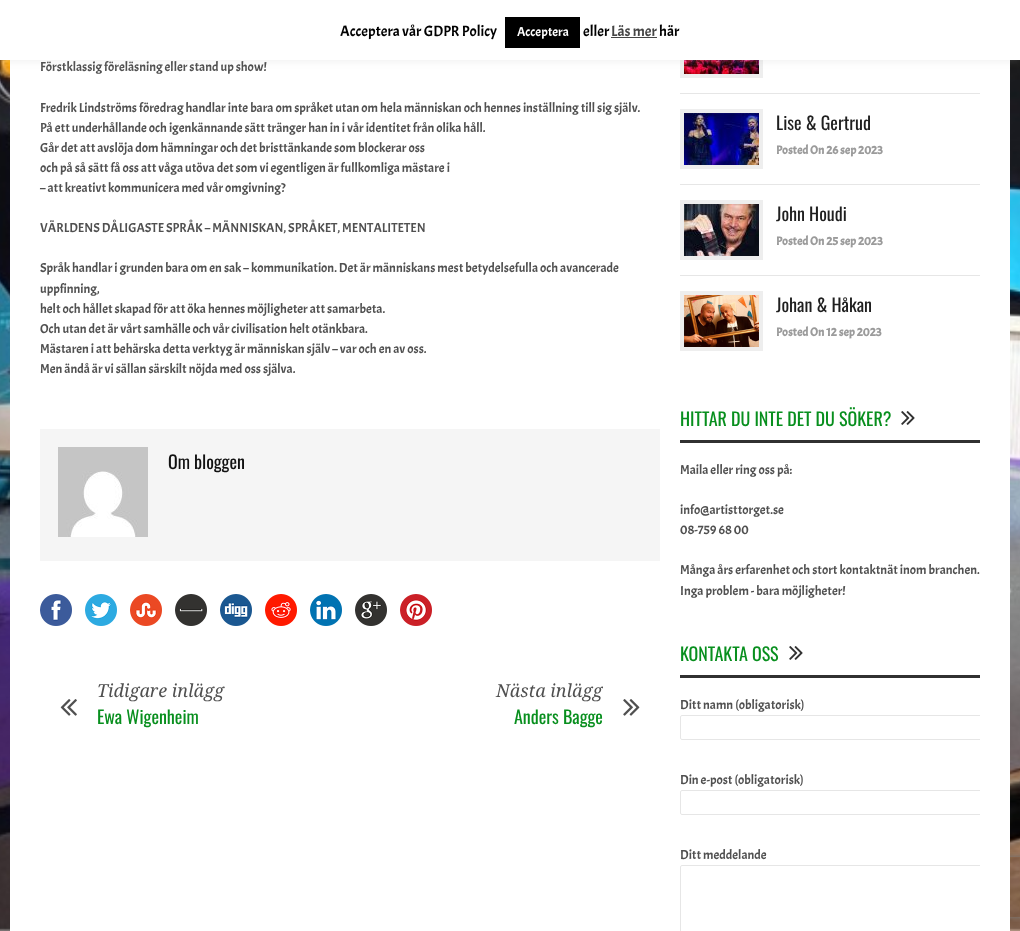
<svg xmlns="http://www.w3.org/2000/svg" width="1020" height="931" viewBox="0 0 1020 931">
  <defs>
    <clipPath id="clip1"><path d="M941 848H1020V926H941ZM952 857H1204C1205 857 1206 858 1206 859V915C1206 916 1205 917 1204 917H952C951 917 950 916 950 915V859C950 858 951 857 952 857Z" clip-rule="evenodd"/></clipPath>
    <filter id="blur1" x="-50%" y="-200%" width="200%" height="500%"><feGaussianBlur stdDeviation="2.5"/></filter>
    <filter id="blur2" x="-50%" y="-200%" width="200%" height="500%"><feGaussianBlur stdDeviation="5"/></filter>
    <clipPath id="clip2"><rect x="350" y="677" width="253" height="67"/></clipPath>
    <clipPath id="clip3"><rect x="680" y="0" width="300" height="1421"/></clipPath>
  </defs>
  <rect width="100%" height="100%" fill="#ffffff"/>
  <image x="0" y="60" width="1020" height="871" href="img1.png"/>
  <g clip-path="url(#clip1)">
    <rect x="950" y="857" width="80" height="60" rx="2" fill="#808080" filter="url(#blur1)"/>
  </g>
  <rect x="10" y="60" width="1000" height="871" fill="#ffffff"/>
  <rect x="680" y="60" width="83" height="18" fill="#eeeeee"/>
  <image x="684" y="60" width="75" height="14" href="img14.png"/>
  <rect x="0" y="-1" width="1020" height="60" fill="#acabab" fill-opacity="0.3" filter="url(#blur2)"/>
  <rect x="0" y="0" width="1020" height="60" fill="#ffffff"/>
  <text x="340" y="36" font-family="Acme" font-size="15" fill="#000000">Acceptera vår GDPR Policy</text>
  <rect x="505" y="17" width="75" height="31" fill="#000000"/>
  <text x="517" y="36" font-family="Acme" font-size="13" fill="#ffffff">Acceptera</text>
  <text x="583" y="36" font-family="Acme" font-size="15" fill="#000000">eller</text>
  <text x="611" y="36" font-family="Acme" font-size="15" fill="#444444">Läs mer</text>
  <rect x="611" y="37" width="46" height="1" fill="#444444"/>
  <text x="659" y="36" font-family="Acme" font-size="15" fill="#000000">här</text>
  <text x="40" y="71" font-family="Acme" font-size="13" fill="#505050">Förstklassig föreläsning eller stand up show!</text>
  <text x="40" y="112" font-family="Acme" font-size="13" fill="#505050">Fredrik Lindströms föredrag handlar inte bara om språket utan om hela människan och hennes inställning till sig själv.</text>
  <text x="40" y="132" font-family="Acme" font-size="13" fill="#505050">På ett underhållande och igenkännande sätt tränger han in i vår identitet från olika håll.</text>
  <text x="40" y="152" font-family="Acme" font-size="13" fill="#505050">Går det att avslöja dom hämningar och det bristtänkande som blockerar oss</text>
  <text x="40" y="172" font-family="Acme" font-size="13" fill="#505050">och på så sätt få oss att våga utöva det som vi egentligen är fullkomliga mästare i</text>
  <text x="40" y="192" font-family="Acme" font-size="13" fill="#505050">– att kreativt kommunicera med vår omgivning?</text>
  <text x="40" y="232" font-family="Acme" font-size="13" fill="#505050">VÄRLDENS DÅLIGASTE SPRÅK – MÄNNISKAN, SPRÅKET, MENTALITETEN</text>
  <text x="40" y="272" font-family="Acme" font-size="13" fill="#505050">Språk handlar i grunden bara om en sak – kommunikation. Det är människans mest betydelsefulla och avancerade</text>
  <text x="40" y="293" font-family="Acme" font-size="13" fill="#505050">uppfinning,</text>
  <text x="40" y="313" font-family="Acme" font-size="13" fill="#505050">helt och hållet skapad för att öka hennes möjligheter att samarbeta.</text>
  <text x="40" y="333" font-family="Acme" font-size="13" fill="#505050">Och utan det är vårt samhälle och vår civilisation helt otänkbara.</text>
  <text x="40" y="353" font-family="Acme" font-size="13" fill="#505050">Mästaren i att behärska detta verktyg är människan själv – var och en av oss.</text>
  <text x="40" y="373" font-family="Acme" font-size="13" fill="#505050">Men ändå är vi sällan särskilt nöjda med oss själva.</text>
  <rect x="40" y="429" width="620" height="132" fill="#f5f5f5"/>
  <image x="58" y="447" width="90" height="90" href="img2.png"/>
  <text x="168" y="469" font-family="Oswald" font-size="18" fill="#111111">Om bloggen</text>
  <image x="40" y="594" width="32" height="32" href="img3.png"/>
  <image x="85" y="594" width="32" height="32" href="img4.png"/>
  <image x="130" y="594" width="32" height="32" href="img5.png"/>
  <image x="175" y="594" width="32" height="32" href="img6.png"/>
  <image x="220" y="594" width="32" height="32" href="img7.png"/>
  <image x="265" y="594" width="32" height="32" href="img8.png"/>
  <image x="310" y="594" width="32" height="32" href="img9.png"/>
  <image x="355" y="594" width="32" height="32" href="img10.png"/>
  <image x="400" y="594" width="32" height="32" href="img11.png"/>
  <image x="60" y="699" width="17" height="17" href="img12.png"/>
  <text x="97" y="697" font-family="Droid Serif" font-size="18" font-style="italic" fill="#505050">Tidigare inlägg</text>
  <text x="97" y="724" font-family="Oswald" font-size="18" fill="#088f1e">Ewa Wigenheim</text>
  <g clip-path="url(#clip2)">
    <text x="496" y="697" font-family="Droid Serif" font-size="18" font-style="italic" fill="#505050">Nästa inlägg</text>
  </g>
  <text x="514" y="724" font-family="Oswald" font-size="18" fill="#088f1e">Anders Bagge</text>
  <image x="623" y="699" width="17" height="17" href="img13.png"/>
  <rect x="680" y="93" width="300" height="1" fill="#e6e6e6"/>
  <rect x="680" y="184" width="300" height="1" fill="#e6e6e6"/>
  <rect x="680" y="109" width="83" height="60" fill="#eeeeee"/>
  <image x="684" y="113" width="75" height="52" href="img15.png"/>
  <text x="776" y="130" font-family="Oswald" font-size="18" fill="#1f1f1f">Lise &amp; Gertrud</text>
  <text x="776" y="154" font-family="Acme" font-size="12" font-weight="bold" fill="#9b9b9b">Posted On 26 sep 2023</text>
  <rect x="680" y="275" width="300" height="1" fill="#e6e6e6"/>
  <rect x="680" y="200" width="83" height="60" fill="#eeeeee"/>
  <image x="684" y="204" width="75" height="52" href="img16.png"/>
  <text x="776" y="221" font-family="Oswald" font-size="18" fill="#1f1f1f">John Houdi</text>
  <text x="776" y="245" font-family="Acme" font-size="12" font-weight="bold" fill="#9b9b9b">Posted On 25 sep 2023</text>
  <rect x="680" y="291" width="83" height="60" fill="#eeeeee"/>
  <image x="684" y="295" width="75" height="52" href="img17.png"/>
  <text x="776" y="312" font-family="Oswald" font-size="18" fill="#1f1f1f">Johan &amp; Håkan</text>
  <text x="776" y="336" font-family="Acme" font-size="12" font-weight="bold" fill="#9b9b9b">Posted On 12 sep 2023</text>
  <rect x="680" y="440" width="300" height="3" fill="#313131"/>
  <text x="680" y="426" font-family="Oswald" font-size="18" fill="#088f1e">HITTAR DU INTE DET DU SÖKER?</text>
  <image x="901" y="411" width="14" height="14" href="img18.png"/>
  <text x="680" y="474" font-family="Acme" font-size="13" fill="#505050">Maila eller ring oss på:</text>
  <text x="680" y="514" font-family="Acme" font-size="13" fill="#505050">info@artisttorget.se</text>
  <text x="680" y="534" font-family="Acme" font-size="13" fill="#505050">08-759 68 00</text>
  <text x="680" y="574" font-family="Acme" font-size="13" fill="#505050">Många års erfarenhet och stort kontaktnät inom branchen.</text>
  <text x="680" y="595" font-family="Acme" font-size="13" fill="#505050">Inga problem - bara möjligheter!</text>
  <rect x="680" y="675" width="300" height="3" fill="#313131"/>
  <text x="680" y="661" font-family="Oswald" font-size="18" fill="#088f1e">KONTAKTA OSS</text>
  <image x="789" y="646" width="14" height="14" href="img18.png"/>
  <text x="680" y="709" font-family="Acme" font-size="13" fill="#505050">Ditt namn (obligatorisk)</text>
  <g clip-path="url(#clip3)">
    <rect x="680.5" y="715.5" width="309" height="24" rx="1.5" fill="none" stroke="#e6e6e6"/>
  </g>
  <text x="680" y="784" font-family="Acme" font-size="13" fill="#505050">Din e-post (obligatorisk)</text>
  <g clip-path="url(#clip3)">
    <rect x="680.5" y="790.5" width="309" height="24" rx="1.5" fill="none" stroke="#e6e6e6"/>
  </g>
  <text x="680" y="859" font-family="Acme" font-size="13" fill="#505050">Ditt meddelande</text>
  <g clip-path="url(#clip3)">
    <rect x="680.5" y="865.5" width="309" height="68" rx="1.5" fill="none" stroke="#e6e6e6"/>
  </g>
</svg>
